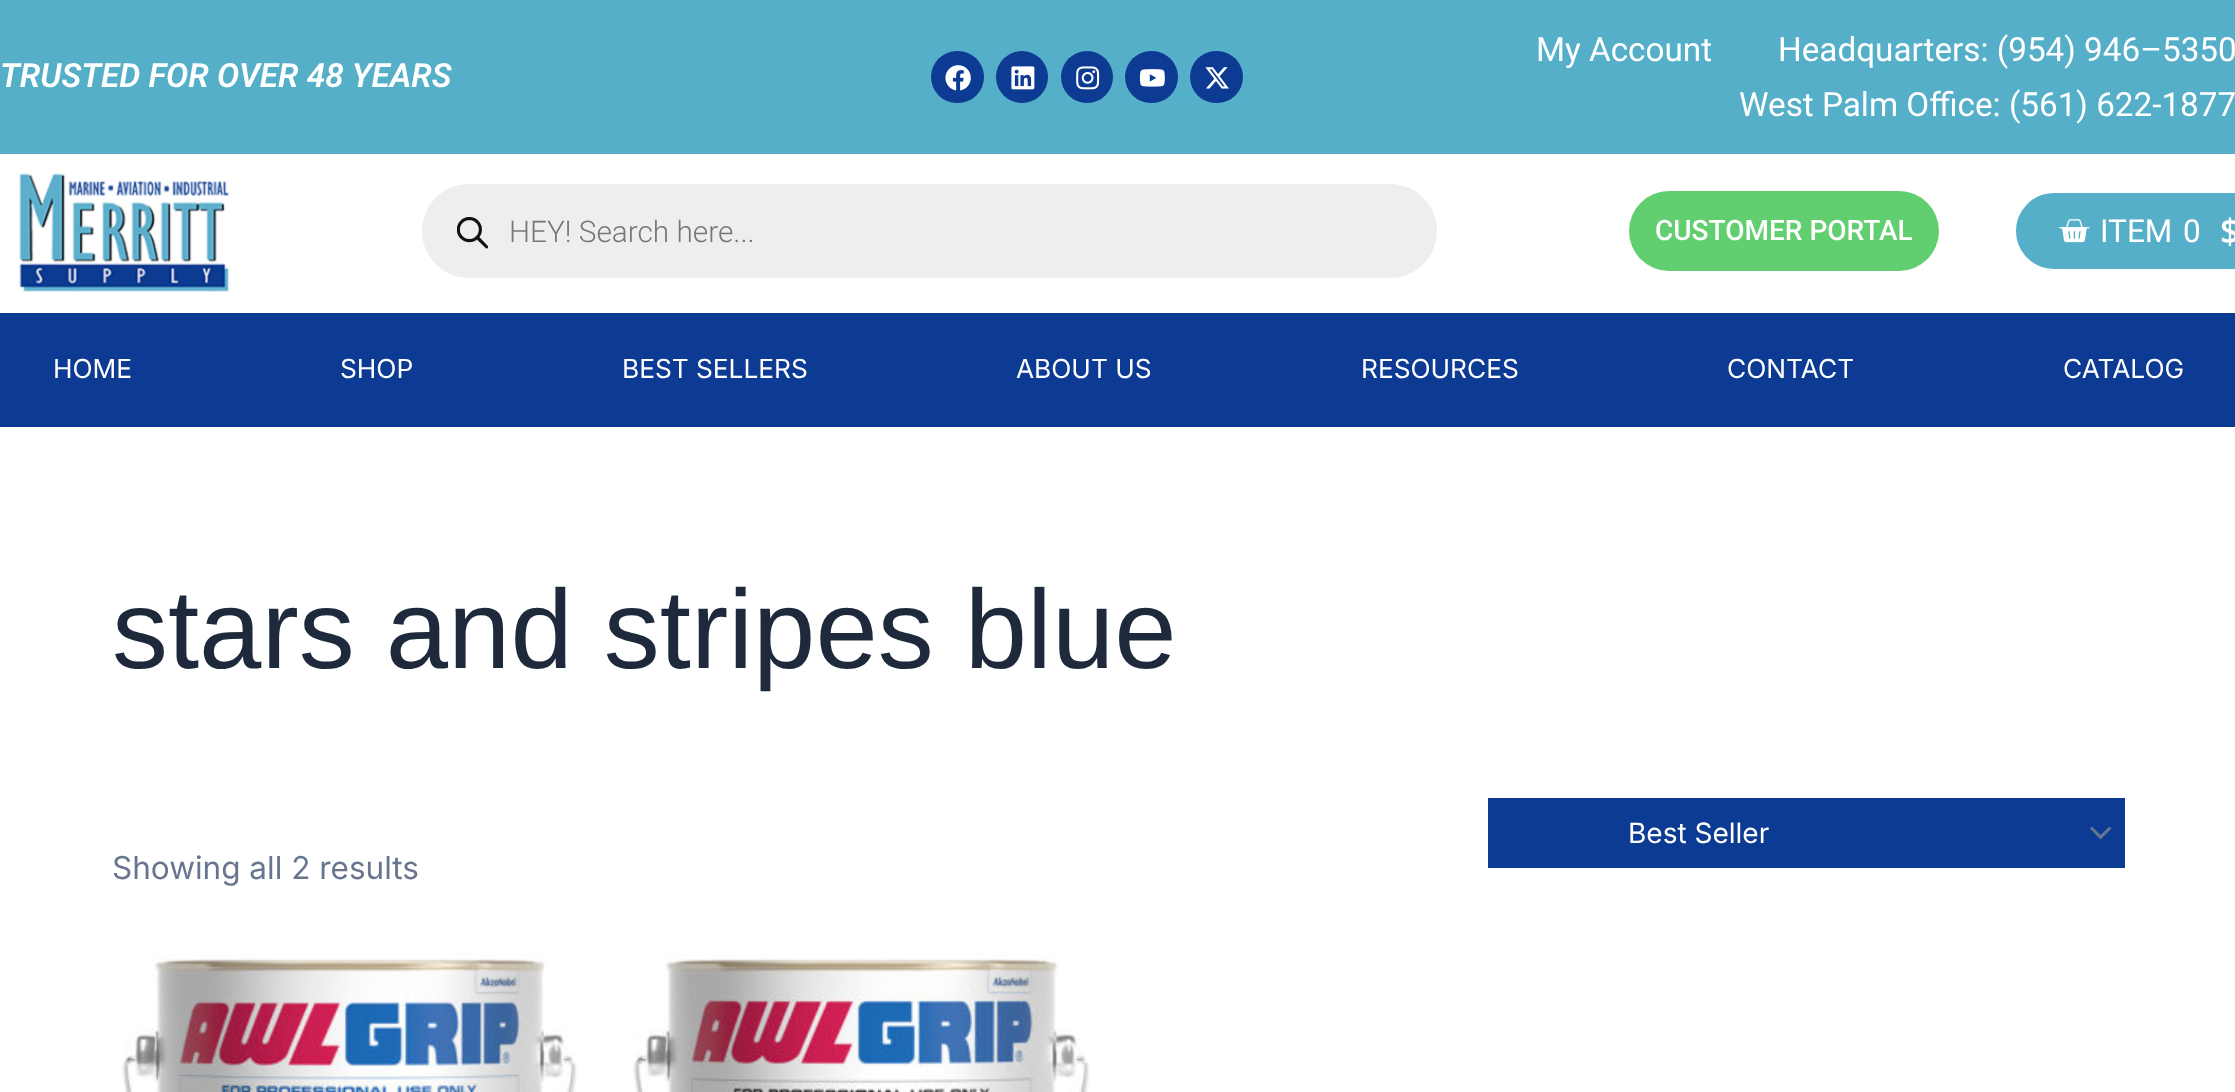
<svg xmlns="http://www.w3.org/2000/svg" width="2235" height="1092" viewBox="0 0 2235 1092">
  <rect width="100%" height="100%" fill="#ffffff"/>
  <rect x="0" y="0" width="2235" height="154" fill="#56afc8"/>
  <text x="0" y="87" font-family="Roboto" font-size="33.25" font-weight="600" font-style="italic" fill="#ffffff">TRUSTED FOR OVER 48 YEARS</text>
  <rect x="931" y="51" width="53" height="52" rx="26" fill="#0d3b93"/>
  <image x="945" y="65" width="26" height="26" href="img1.png"/>
  <circle cx="1022" cy="77" r="26" fill="#0d3b93"/>
  <image x="1011" y="66" width="24" height="24" href="img2.png"/>
  <circle cx="1087" cy="77" r="26" fill="#0d3b93"/>
  <image x="1076" y="66" width="24" height="24" href="img3.png"/>
  <rect x="1125" y="51" width="53" height="52" rx="26" fill="#0d3b93"/>
  <image x="1139" y="69" width="26" height="18" href="img4.png"/>
  <rect x="1190" y="51" width="53" height="52" rx="26" fill="#0d3b93"/>
  <image x="1205" y="67" width="24" height="22" href="img5.png"/>
  <text x="1536" y="61" font-family="Roboto" font-size="33.25" fill="#ffffff">My Account</text>
  <text x="1778" y="61" font-family="Roboto" font-size="33.25" fill="#ffffff">Headquarters: (954) 946–5350</text>
  <text x="1739" y="116" font-family="Roboto" font-size="33.25" fill="#ffffff">West Palm Office: (561) 622-1877</text>
  <image x="19" y="173" width="211" height="119" href="img6.png"/>
  <rect x="422" y="184" width="1015" height="94" rx="47" fill="#eeeeee"/>
  <image x="457" y="217" width="31" height="32" href="img7.png"/>
  <text x="509" y="242" font-family="Roboto" font-size="29.75" font-weight="300" fill="#777777">HEY! Search here...</text>
  <rect x="1629" y="191" width="310" height="80" rx="40" fill="#61ce70"/>
  <text x="1655" y="240" font-family="Roboto" font-size="28" font-weight="500" fill="#ffffff">CUSTOMER PORTAL</text>
  <rect x="2015" y="192" width="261" height="78" rx="39" fill="#56afc8" stroke="#ffffff" stroke-width="2"/>
  <image x="2059" y="219" width="31" height="24" href="img8.png"/>
  <text x="2100" y="242" font-family="Roboto" font-size="31.5" fill="#ffffff">ITEM</text>
  <text x="2183" y="242" font-family="Roboto" font-size="31.5" fill="#ffffff">0</text>
  <text x="2220" y="244" font-family="Open Sans" font-size="35" font-weight="600" fill="#ffffff">$</text>
  <rect x="0" y="313" width="2235" height="114" fill="#0d3b93"/>
  <text x="53" y="378" font-family="Inter" font-size="26.25" fill="#ffffff">HOME</text>
  <text x="340" y="378" font-family="Inter" font-size="26.25" fill="#ffffff">SHOP</text>
  <text x="622" y="378" font-family="Inter" font-size="26.25" fill="#ffffff">BEST SELLERS</text>
  <text x="1016" y="378" font-family="Inter" font-size="26.25" fill="#ffffff">ABOUT US</text>
  <text x="1361" y="378" font-family="Inter" font-size="26.25" fill="#ffffff">RESOURCES</text>
  <text x="1727" y="378" font-family="Inter" font-size="26.25" fill="#ffffff">CONTACT</text>
  <text x="2063" y="378" font-family="Inter" font-size="26.25" fill="#ffffff">CATALOG</text>
  <text x="112" y="668" font-family="Liberation Sans" font-size="112" fill="#1e293b">stars and stripes blue</text>
  <rect x="1488" y="798" width="637" height="70" fill="#0c3b93"/>
  <path d="M2090 828.5L2100.5 839.5L2111.5 828.5L2109.5 826.5L2100.5 835L2092 826.5Z" fill="#67768e"/>
  <text x="1628" y="843" font-family="Inter" font-size="28" fill="#ffffff">Best Seller</text>
  <text x="112" y="879" font-family="Inter" font-size="31.5" fill="#67768e">Showing all 2 results</text>
  <image x="122" y="952" width="455" height="140" href="img9.png"/>
  <image x="633" y="952" width="457" height="140" href="img10.png"/>
</svg>
